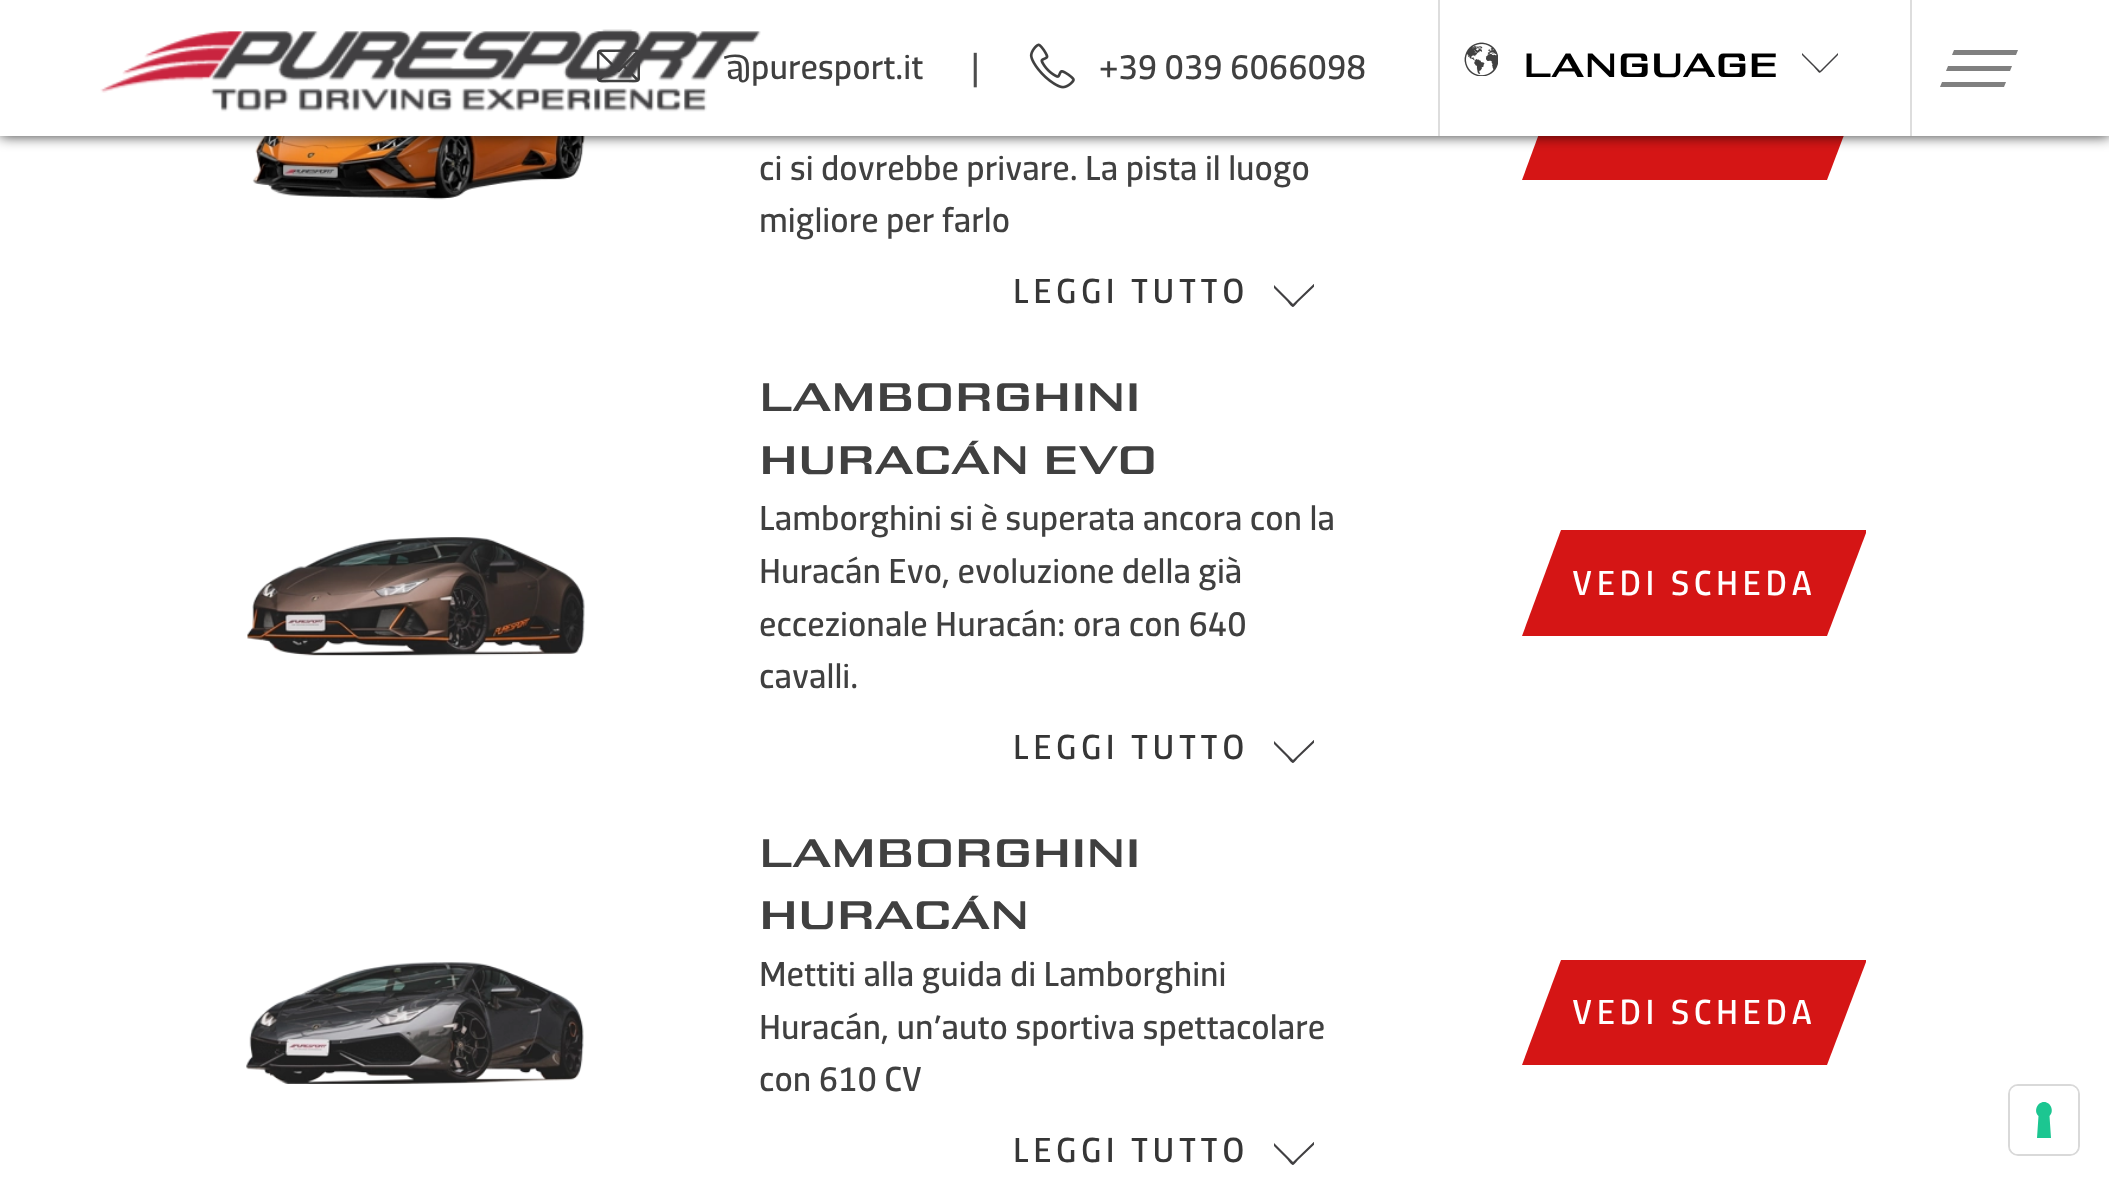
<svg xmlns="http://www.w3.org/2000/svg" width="2109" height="1185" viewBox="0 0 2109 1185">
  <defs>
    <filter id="blur1" x="-50%" y="-200%" width="200%" height="500%"><feGaussianBlur stdDeviation="7"/></filter>
    <clipPath id="clip1"><rect x="1802" y="42" width="36" height="34"/></clipPath>
    <clipPath id="clip2"><rect x="1274" y="272" width="40" height="40"/></clipPath>
    <clipPath id="clip3"><rect x="1274" y="728" width="40" height="40"/></clipPath>
    <clipPath id="clip4"><rect x="1274" y="1130" width="40" height="40"/></clipPath>
  </defs>
  <rect width="100%" height="100%" fill="#ffffff"/>
  <image x="252" y="136" width="333" height="64" href="img5.png"/>
  <path d="M1561 74H1866V77L1827 180H1522Z" fill="#d51515"/>
  <rect x="0" y="0" width="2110" height="136" fill="#000000" fill-opacity="0.8" filter="url(#blur1)"/>
  <rect x="0" y="0" width="2109" height="136" fill="#ffffff"/>
  <image x="596" y="49" width="44" height="34" href="img2.png"/>
  <text x="723" y="79" font-family="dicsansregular" font-size="35.25" fill="#404040">@puresport.it</text>
  <image x="100" y="29" width="661" height="83" href="img1.png"/>
  <text x="971" y="79" font-family="dicsansregular" font-size="35.25" fill="#4d4d4d">|</text>
  <image x="1029" y="43" width="46" height="46" href="img3.png"/>
  <text x="1099" y="79" font-family="dicsansregular" font-size="35.25" fill="#404040">+39 039 6066098</text>
  <rect x="1438" y="0" width="2" height="136" fill="#dddddd"/>
  <image x="1464" y="42" width="34" height="34" href="img4.png"/>
  <text x="1523" y="77" font-family="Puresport" font-size="35.25" fill="#000000">LANGUAGE</text>
  <g clip-path="url(#clip1)">
    <path d="M1796 49L1812 65C1821 74 1818 75 1824 69L1844 49L1843 48L1820 71L1797 48Z" fill="#414042"/>
  </g>
  <rect x="1910" y="0" width="2" height="136" fill="#dddddd"/>
  <path d="M1954 50H2018L2016 55H1952Z" fill="#808080"/>
  <path d="M1948 66H2012L2010 71H1946Z" fill="#808080"/>
  <path d="M1942 82H2006L2004 87H1940Z" fill="#808080"/>
  <text x="759" y="180" font-family="dicsansregular" font-size="35.25" fill="#404040">ci si dovrebbe privare. La pista il luogo</text>
  <text x="759" y="232" font-family="dicsansregular" font-size="35.25" fill="#404040">migliore per farlo</text>
  <text x="1013" y="303" font-family="dicsansregular" font-size="35.25" letter-spacing="4.5" fill="#363636">LEGGI TUTTO</text>
  <g clip-path="url(#clip2)">
    <path d="M1266 280L1284 298C1294 308 1291 310 1298 302L1321 280L1319 279L1293 304L1268 279Z" fill="#414042"/>
  </g>
  <image x="247" y="537" width="338" height="119" href="img6.png"/>
  <text x="759" y="411" font-family="Puresport" font-size="41.5" fill="#404040">Lamborghini</text>
  <text x="759" y="474" font-family="Puresport" font-size="41.5" fill="#404040">Huracán EVO</text>
  <text x="759" y="530" font-family="dicsansregular" font-size="35.25" fill="#404040">Lamborghini si è superata ancora con la</text>
  <text x="759" y="583" font-family="dicsansregular" font-size="35.25" fill="#404040">Huracán Evo, evoluzione della già</text>
  <text x="759" y="636" font-family="dicsansregular" font-size="35.25" fill="#404040">eccezionale Huracán: ora con 640</text>
  <text x="759" y="688" font-family="dicsansregular" font-size="35.25" fill="#404040">cavalli.</text>
  <text x="1013" y="759" font-family="dicsansregular" font-size="35.25" letter-spacing="4.5" fill="#363636">LEGGI TUTTO</text>
  <g clip-path="url(#clip3)">
    <path d="M1266 736L1284 754C1294 764 1291 766 1298 758L1321 736L1319 735L1293 760L1268 735Z" fill="#414042"/>
  </g>
  <path d="M1561 530H1866V533L1827 636H1522Z" fill="#d51515"/>
  <text x="1572" y="595" font-family="dicsansregular" font-size="35.25" letter-spacing="4.5" fill="#ffffff">VEDI SCHEDA</text>
  <image x="246" y="962" width="338" height="122" href="img7.png"/>
  <text x="759" y="867" font-family="Puresport" font-size="41.5" fill="#404040">Lamborghini</text>
  <text x="759" y="929" font-family="Puresport" font-size="41.5" fill="#404040">Huracán</text>
  <text x="759" y="986" font-family="dicsansregular" font-size="35.25" fill="#404040">Mettiti alla guida di Lamborghini</text>
  <text x="759" y="1039" font-family="dicsansregular" font-size="35.25" fill="#404040">Huracán, un’auto sportiva spettacolare</text>
  <text x="759" y="1091" font-family="dicsansregular" font-size="35.25" fill="#404040">con 610 CV</text>
  <text x="1013" y="1162" font-family="dicsansregular" font-size="35.25" letter-spacing="4.5" fill="#363636">LEGGI TUTTO</text>
  <g clip-path="url(#clip4)">
    <path d="M1266 1138L1284 1156C1294 1166 1291 1168 1298 1160L1321 1138L1319 1137L1293 1162L1268 1137Z" fill="#414042"/>
  </g>
  <path d="M1522 1065L1561 960H1866V962L1827 1065Z" fill="#d51515"/>
  <text x="1572" y="1024" font-family="dicsansregular" font-size="35.25" letter-spacing="4.5" fill="#ffffff">VEDI SCHEDA</text>
  <rect x="2009" y="1085" width="70" height="70" rx="9" fill="none" stroke="#d9d9d9" stroke-width="2"/>
  <rect x="2010" y="1086" width="68" height="68" rx="8" fill="#ffffff"/>
  <path d="M2044 1102C2051 1102 2054.5 1111.5 2049.5 1116L2051 1138H2037L2038.5 1116C2033.5 1111.5 2037 1102 2044 1102Z" fill="#1cc691" fill-rule="evenodd"/>
</svg>
